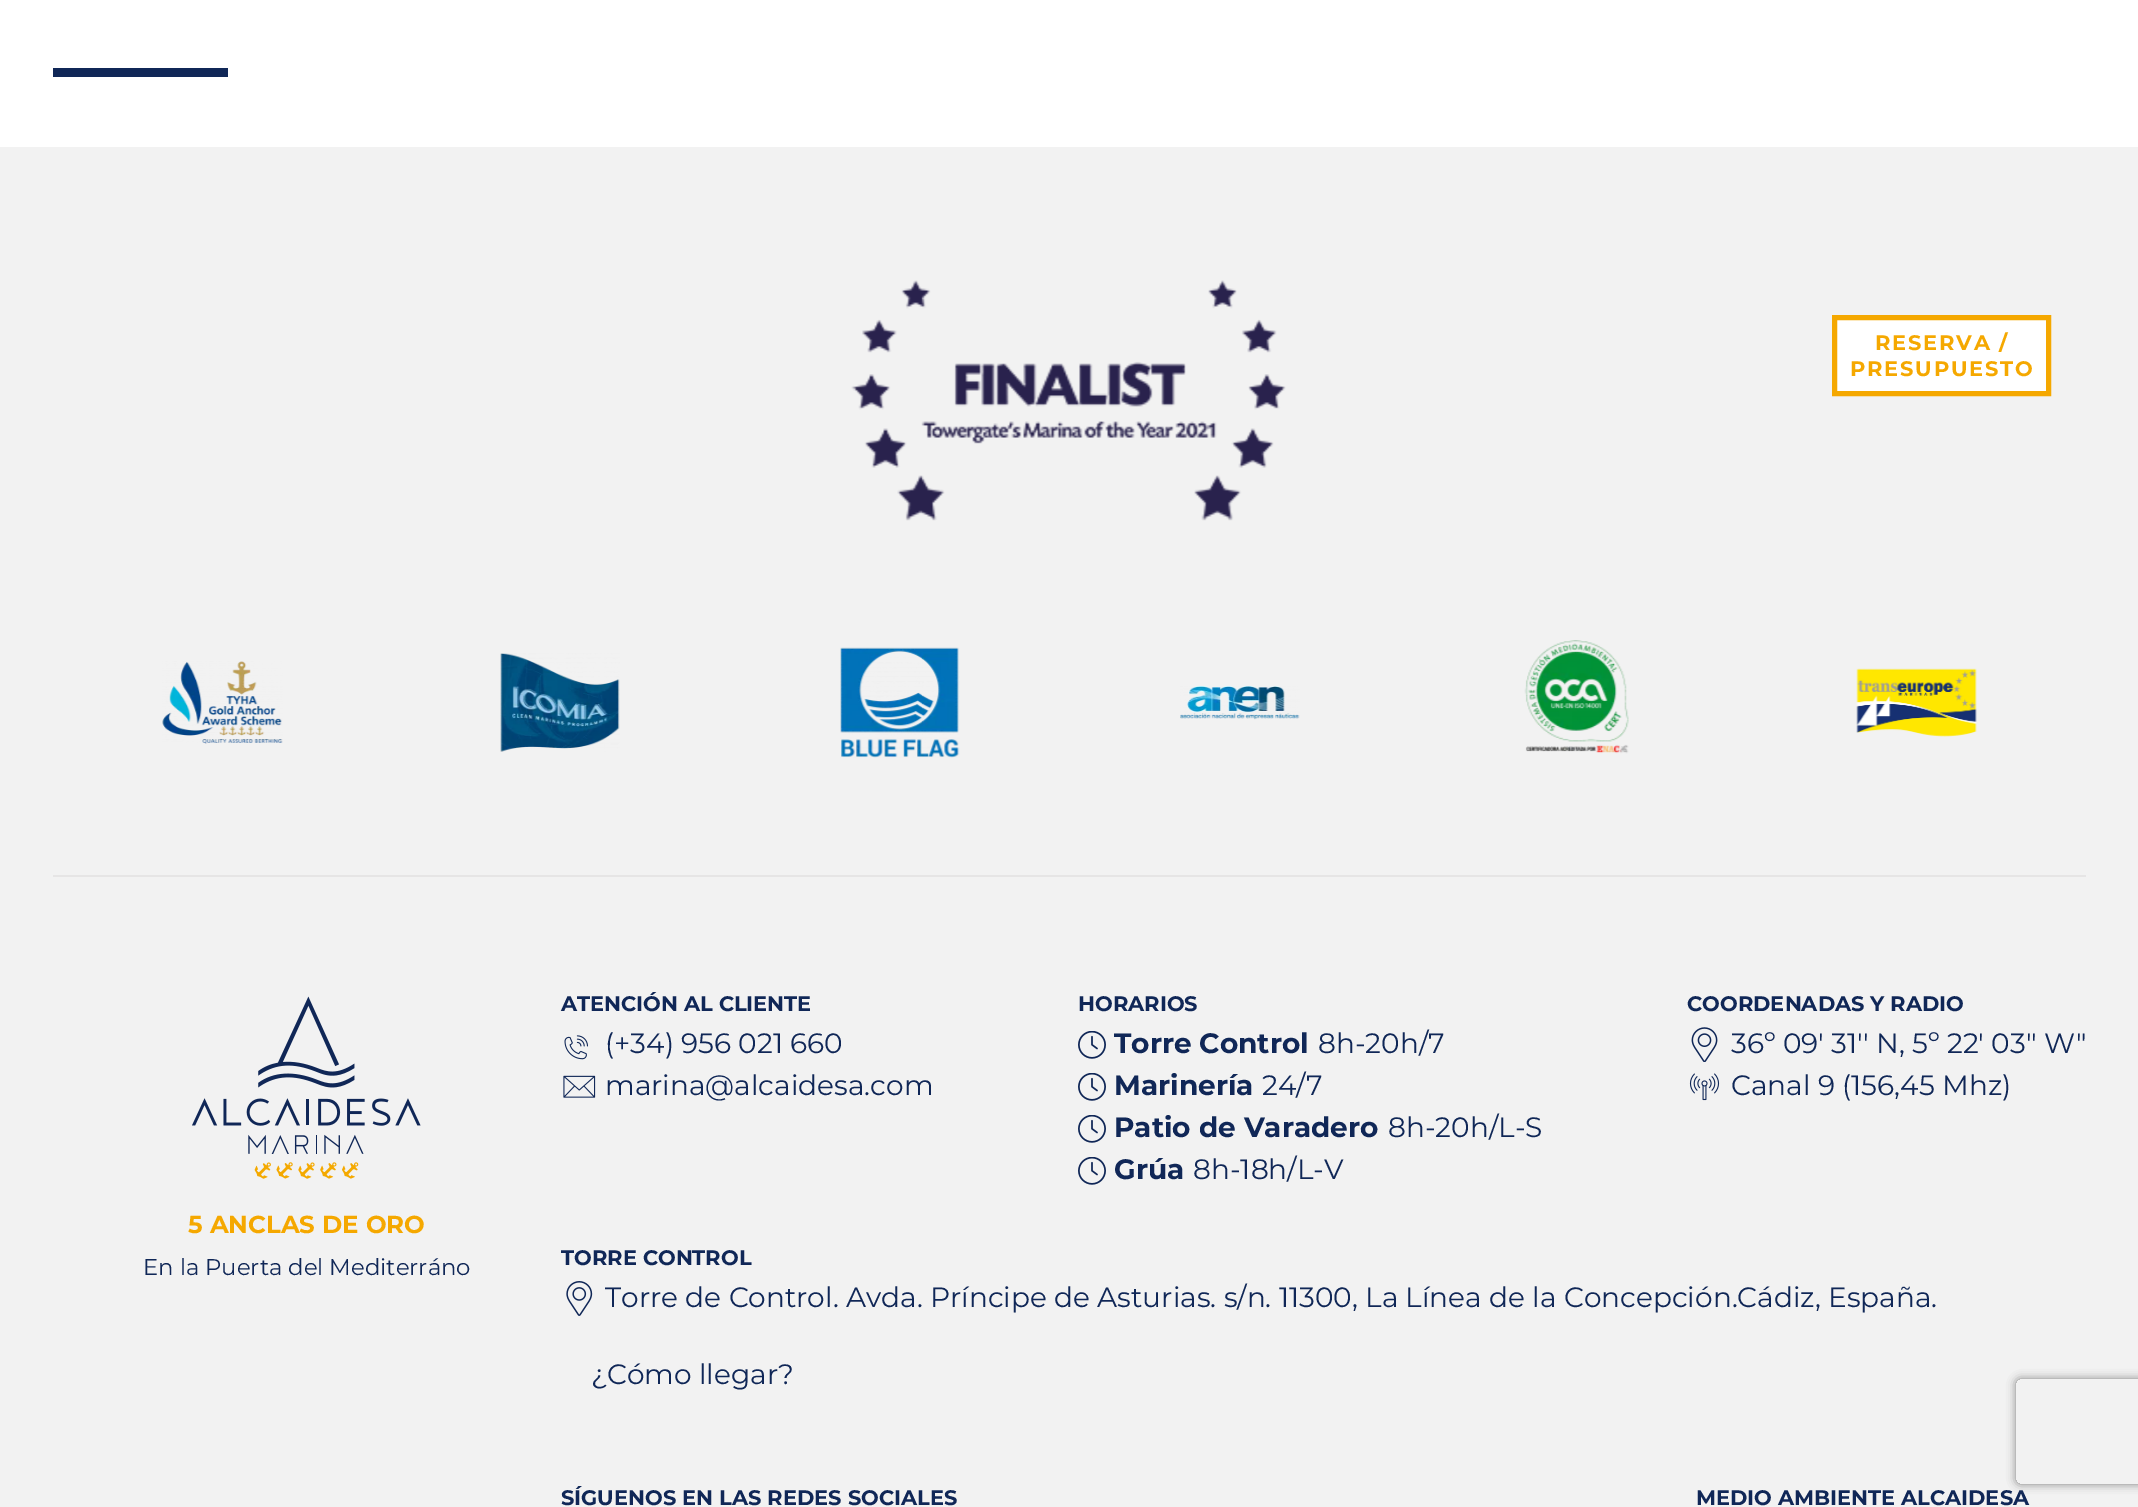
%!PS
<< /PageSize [2138 1507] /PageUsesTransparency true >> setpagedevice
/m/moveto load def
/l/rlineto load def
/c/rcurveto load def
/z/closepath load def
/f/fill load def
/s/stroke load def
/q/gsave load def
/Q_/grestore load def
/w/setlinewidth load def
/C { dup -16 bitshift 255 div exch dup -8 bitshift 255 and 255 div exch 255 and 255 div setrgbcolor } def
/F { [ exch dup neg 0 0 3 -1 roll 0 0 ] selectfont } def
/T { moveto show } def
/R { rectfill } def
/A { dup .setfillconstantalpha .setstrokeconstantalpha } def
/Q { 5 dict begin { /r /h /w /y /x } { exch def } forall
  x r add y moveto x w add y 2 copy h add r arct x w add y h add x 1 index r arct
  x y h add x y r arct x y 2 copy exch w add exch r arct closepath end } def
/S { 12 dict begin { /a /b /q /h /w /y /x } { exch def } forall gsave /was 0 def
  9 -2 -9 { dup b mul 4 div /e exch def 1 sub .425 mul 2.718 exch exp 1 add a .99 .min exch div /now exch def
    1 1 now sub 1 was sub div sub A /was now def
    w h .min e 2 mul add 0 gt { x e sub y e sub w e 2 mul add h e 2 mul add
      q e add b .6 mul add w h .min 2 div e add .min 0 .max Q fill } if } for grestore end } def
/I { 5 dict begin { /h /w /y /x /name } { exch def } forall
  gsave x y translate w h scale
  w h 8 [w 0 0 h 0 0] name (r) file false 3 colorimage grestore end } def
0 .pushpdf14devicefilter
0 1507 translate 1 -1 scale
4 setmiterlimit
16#FFFFFF C
0 0 2138 1507 R
16#102757 C
53 68 175 9 R
16#F2F2F2 C
0 147 2138 1360 R
16#FFFFFF C
1834.5 317.5 m 214 0 l 0 76 l -214 0 l z q f Q_
16#F5A800 C
5 w
s
/Montserrat-Bold 21 F
1875 350 m 1.75 0 (RESERVA /) ashow
1850 376 m 1.75 0 (PRESUPUESTO) ashow
(1.rgb) 851 280 435 241 I
16#E6E5E5 C
53 875 2033 2 R
(2.rgb) 162 661 121 83 I
(3.rgb) 500 653 120 99 I
(4.rgb) 840 647 120 111 I
(5.rgb) 1180 686 120 34 I
(6.rgb) 1524 640 105 114 I
(7.rgb) 1856 668 121 69 I
(8.rgb) 192 996 229 183 I
/Montserrat-Bold 24.5 F
16#F5A800 C
(5 ANCLAS DE ORO) 188 1233 T
/Montserrat-Regular 22.75 F
16#102757 C
(En la Puerta del Mediterráno) 143 1275 T
/Montserrat-Bold 21 F
(ATENCIÓN AL CLIENTE) 561 1011 T
(9.rgb) 564 1035 24 25 I
/Montserrat-Regular 28 F
(\(+34\) 956 021 660) 605 1053 T
(10.rgb) 563 1075 33 23 I
(marina@alcaidesa.com) 605 1095 T
/Montserrat-Bold 21 F
(HORARIOS) 1078 1011 T
(11.rgb) 1078 1031 28 28 I
/Montserrat-Bold 28 F
(Torre Control) 1114 1053 T
/Montserrat-Regular 28 F
(8h-20h/7) 1318 1053 T
(11.rgb) 1078 1073 28 28 I
/Montserrat-Bold 28 F
(Marinería) 1114 1095 T
/Montserrat-Regular 28 F
(24/7) 1262 1095 T
(11.rgb) 1078 1115 28 28 I
/Montserrat-Bold 28 F
(Patio de Varadero) 1114 1137 T
/Montserrat-Regular 28 F
(8h-20h/L-S) 1388 1137 T
(11.rgb) 1078 1157 28 28 I
/Montserrat-Bold 28 F
(Grúa) 1114 1179 T
/Montserrat-Regular 28 F
(8h-18h/L-V) 1193 1179 T
/Montserrat-Bold 21 F
(COORDENADAS Y RADIO) 1687 1011 T
(12.rgb) 1691 1027 27 35 I
/Montserrat-Regular 28 F
(36º 09' 31'' N, 5º 22' 03'' W") 1731 1053 T
(13.rgb) 1689 1073 31 28 I
(Canal 9 \(156,45 Mhz\)) 1731 1095 T
/Montserrat-Bold 21 F
(TORRE CONTROL) 561 1265 T
(14.rgb) 566 1281 27 35 I
/Montserrat-Regular 28 F
(Torre de Control. Avda. Príncipe de Asturias. s/n. 11300, La Línea de la Concepción.Cádiz, España.) 605 1307 T
(¿Cómo llegar?) 591 1384 T
/Montserrat-Bold 21 F
(SÍGUENOS EN LAS REDES SOCIALES) 561 1505 T
(MEDIO AMBIENTE ALCAIDESA) 1696 1505 T
q
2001 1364 m 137 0 l 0 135 l -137 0 l z 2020 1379 m 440 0 l 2 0 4 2 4 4 c 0 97 l 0 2 -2 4 -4 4 c -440 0 l -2 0 -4 -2 -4 -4 c 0 -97 l 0 -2 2 -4 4 -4 c z eoclip newpath
16#808080 C
2016 1379 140 105 4 4.5 1 S
Q_
.poppdf14devicefilter showpage
